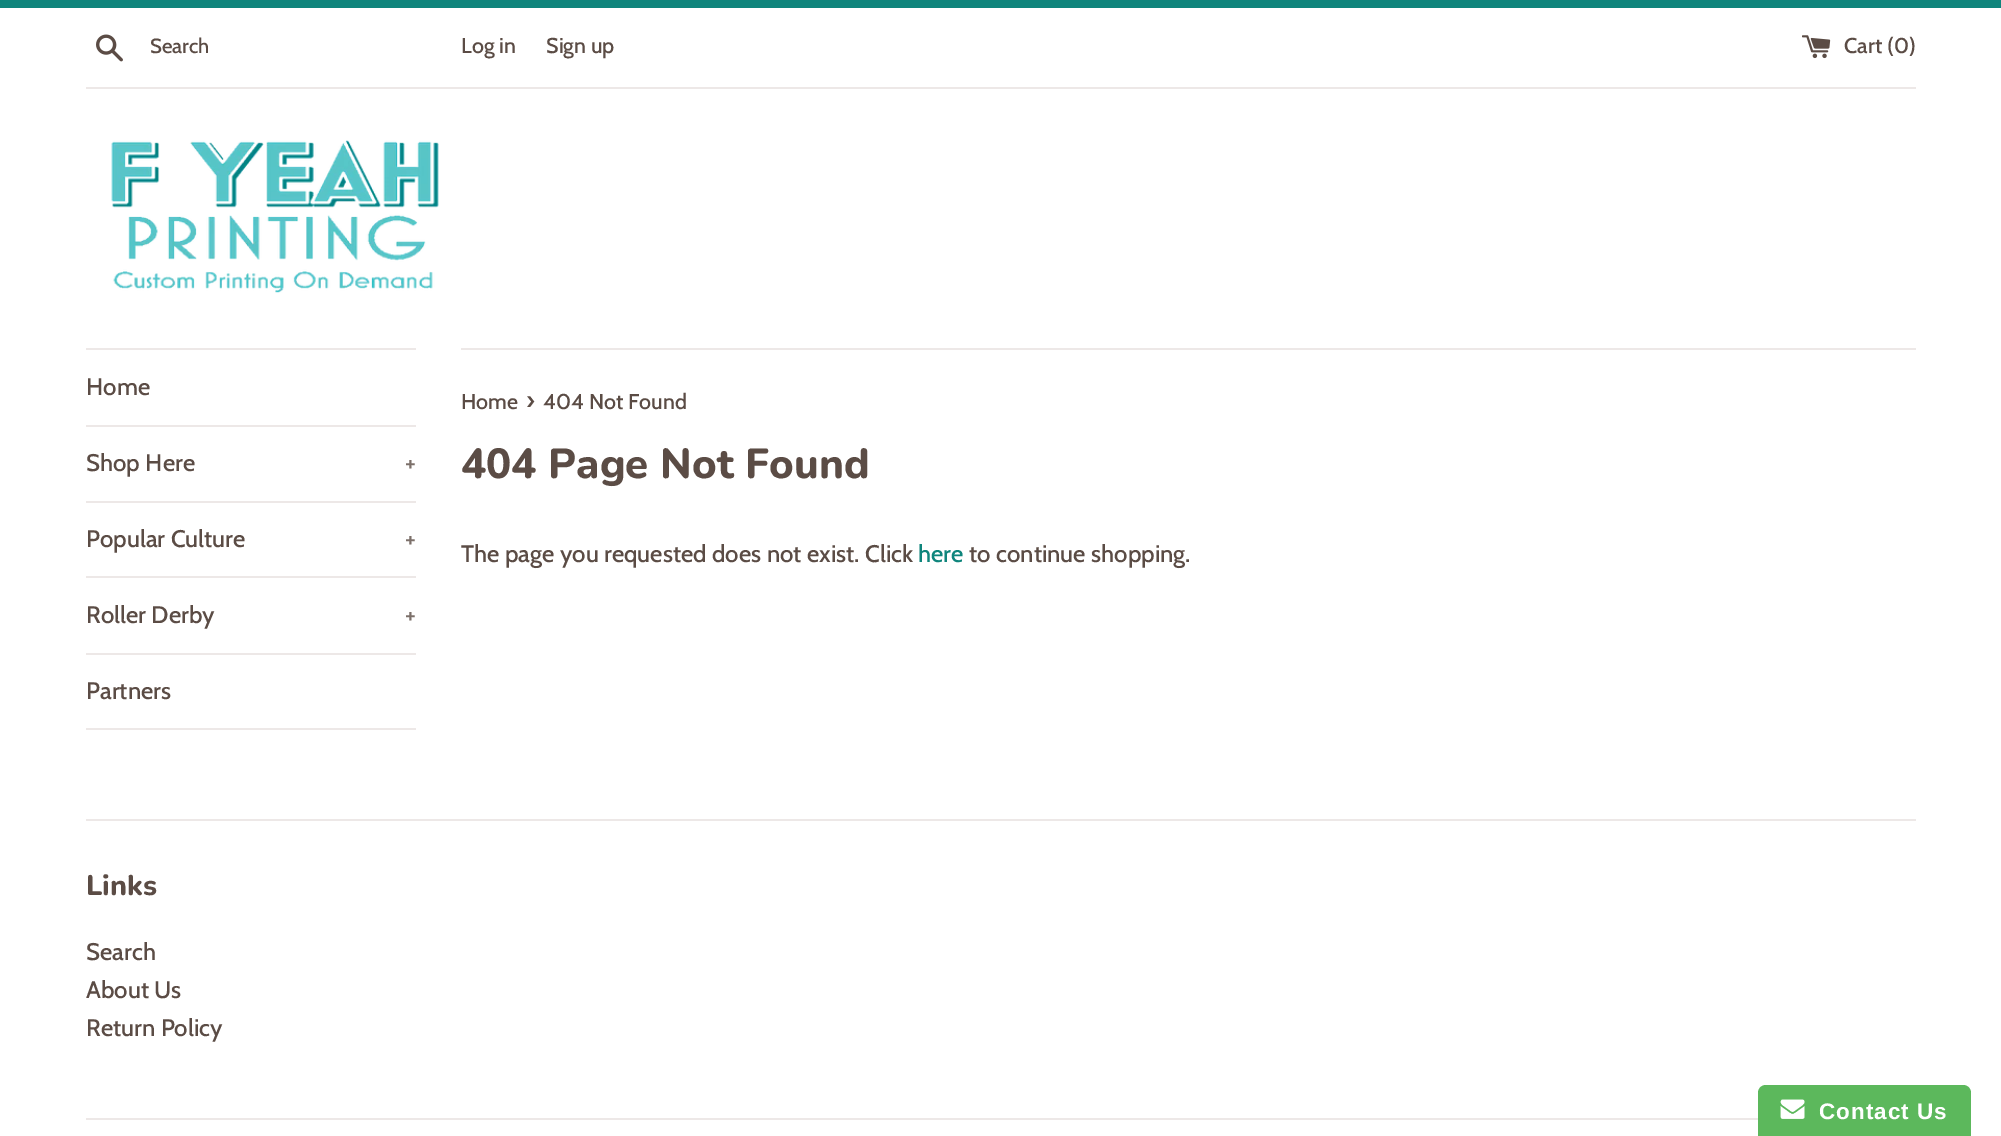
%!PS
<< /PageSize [2001 1136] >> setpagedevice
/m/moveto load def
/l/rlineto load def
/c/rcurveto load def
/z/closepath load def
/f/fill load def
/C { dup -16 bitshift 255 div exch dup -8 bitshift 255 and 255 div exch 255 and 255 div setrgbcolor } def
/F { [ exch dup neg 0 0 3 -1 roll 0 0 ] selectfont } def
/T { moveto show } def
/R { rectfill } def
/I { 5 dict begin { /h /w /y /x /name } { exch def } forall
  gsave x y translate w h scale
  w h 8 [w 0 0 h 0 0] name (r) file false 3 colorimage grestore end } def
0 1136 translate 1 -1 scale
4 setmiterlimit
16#FFFFFF C
0 0 2001 1136 R
16#0F857C C
0 0 2001 8 R
(1.rgb) 96 34 27 28 I
/Cabin-Medium 20.5 F
16#5B4C45 C
(Search) 150 53 T
/Cabin-Medium 21.5 F
(Log in) 461 53 T
(Sign up) 546 53 T
(2.rgb) 1802 35 29 24 I
(Cart \(0\)) 1844 53 T
16#EDE8E7 C
86 87 1830 2 R
(3.rgb) 111 140 328 153 I
86 348 330 2 R
86 425 330 2 R
/Cabin-Medium 24 F
16#5B4C45 C
(Home) 86 395 T
16#EDE8E7 C
86 501 330 2 R
16#5B4C45 C
(Shop Here) 86 471 T
16#7C706A C
(+) 405 471 T
16#EDE8E7 C
86 576 330 2 R
16#5B4C45 C
(Popular Culture) 86 547 T
16#7C706A C
(+) 405 547 T
16#EDE8E7 C
86 653 330 2 R
16#5B4C45 C
(Roller Derby) 86 623 T
16#7C706A C
(+) 405 623 T
16#EDE8E7 C
86 728 330 2 R
16#5B4C45 C
(Partners) 86 699 T
16#EDE8E7 C
461 348 1455 2 R
/Cabin-Medium 21.5 F
16#5B4C45 C
(Home) 461 409 T
/Cabin-Medium 26 F
(›) 526 409 T
/Cabin-Medium 21.5 F
(404 Not Found) 543 409 T
/Nunito-ExtraBold 42 F
(404 Page Not Found) 461 478 T
/Cabin-Medium 24 F
(The page you requested does not exist. Click) 461 562 T
16#0F857C C
(here) 918 562 T
16#5B4C45 C
(to continue shopping.) 969 562 T
16#EDE8E7 C
86 819 1830 2 R
/Nunito-ExtraBold 28.5 F
16#5B4C45 C
(Links) 86 895 T
/Cabin-Medium 24 F
(Search) 86 960 T
(About Us) 86 998 T
(Return Policy) 86 1036 T
16#EDE8E7 C
86 1118 1672 2 R
16#5CB85C C
1766 1085 m 197 0 l 4.5 0 8 3.5 8 8 c 0 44 l -213 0 l 0 -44 l 0 -4.5 3.5 -8 8 -8 c z f
(4.rgb) 1780 1099 25 20 I
/LiberationSans-Bold 22.5 F
16#FFFFFF C
1819 1119 m 1 0 (Contact Us) ashow
showpage
